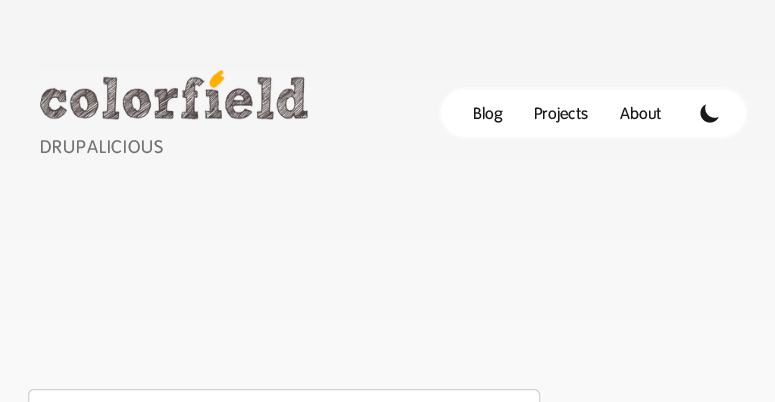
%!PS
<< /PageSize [775 402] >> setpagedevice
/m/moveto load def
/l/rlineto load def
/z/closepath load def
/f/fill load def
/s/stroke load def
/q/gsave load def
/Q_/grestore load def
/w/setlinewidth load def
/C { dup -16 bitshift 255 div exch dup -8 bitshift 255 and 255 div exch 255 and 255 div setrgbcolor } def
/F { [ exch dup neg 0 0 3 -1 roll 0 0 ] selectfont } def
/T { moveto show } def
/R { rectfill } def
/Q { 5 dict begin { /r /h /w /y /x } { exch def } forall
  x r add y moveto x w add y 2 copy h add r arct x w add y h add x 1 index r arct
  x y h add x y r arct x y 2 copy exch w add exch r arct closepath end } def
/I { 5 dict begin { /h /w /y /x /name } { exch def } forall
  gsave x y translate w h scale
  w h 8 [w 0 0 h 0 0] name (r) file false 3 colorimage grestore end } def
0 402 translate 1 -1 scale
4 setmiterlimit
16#FFFFFF C
0 0 775 402 R
q 0 0 m 775 0 l 0 402 l -775 0 l z clip newpath
<< /ShadingType 2 /ColorSpace /DeviceRGB /Coords [387 0 388 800] /Extend [true true] /Function << /FunctionType 2 /Domain [0 1] /C0 [.961 .961 .961] /C1 [1 1 1] /N 1 >> >> shfill Q_
440 88 307 50 25 Q q f Q_
16#FAFAFA C
2 w
s
/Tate-Regular 16 F
16#171717 C
(Blog) 473 119 T
(Projects) 534 119 T
(About) 620 119 T
(1.rgb) 700 104 19 19 I
(2.rgb) 40 69 268 51 I
/Tate-Regular 18 F
16#737373 C
40 153 m .9 0 (DRUPALICIOUS) ashow
16#FFFFFF C
28.5 389.5 511 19 5.5 Q q f Q_
16#D4D4D4 C
1 w
s
showpage
